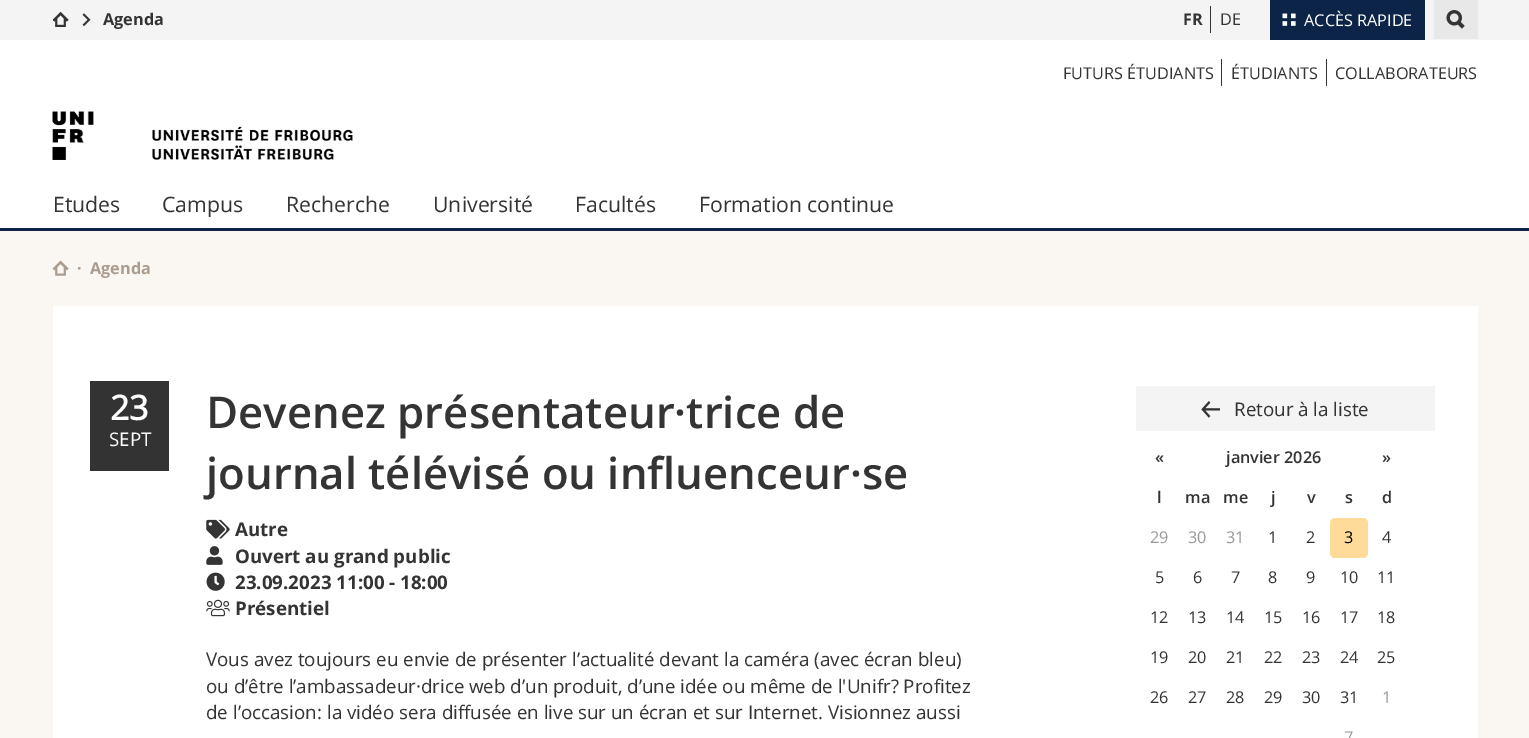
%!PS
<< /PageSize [1529 738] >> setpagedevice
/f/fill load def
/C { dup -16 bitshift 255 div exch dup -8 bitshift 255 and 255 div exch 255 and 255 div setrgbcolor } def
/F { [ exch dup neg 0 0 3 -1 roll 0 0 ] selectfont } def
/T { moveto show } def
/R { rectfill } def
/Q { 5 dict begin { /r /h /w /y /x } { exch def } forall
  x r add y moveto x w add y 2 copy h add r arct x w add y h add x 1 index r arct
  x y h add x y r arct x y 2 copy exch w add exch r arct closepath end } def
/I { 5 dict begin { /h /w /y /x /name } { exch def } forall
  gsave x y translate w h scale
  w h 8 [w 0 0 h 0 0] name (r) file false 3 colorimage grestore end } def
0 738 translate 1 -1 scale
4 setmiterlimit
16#FAF7F2 C
0 0 1529 738 R
16#F4F4F4 C
0 0 1529 40 R
(1.rgb) 53 11 16 16 I
(2.rgb) 82 13 9 14 I
/OpenSans-Bold 16.25 F
16#343434 C
(Agenda) 103 25 T
(FR) 1183 25 T
1210 6 1 27 R
/OpenSans-Regular 16.25 F
(DE) 1220 25 T
16#0C2447 C
1270 0 155 40 R
(3.rgb) 1282 13 14 13 I
16#FFFFFF C
(ACCÈS RAPIDE) 1304 26 T
16#E8E8E8 C
1434 0 44 39 R
(4.rgb) 1446 10 19 19 I
16#FFFFFF C
0 40 1529 188 R
16#343434 C
(FUTURS ÉTUDIANTS) 1063 79 T
1221 59 1 27 R
(ÉTUDIANTS) 1231 79 T
1326 59 1 27 R
(COLLABORATEURS) 1335 79 T
(5.rgb) 52 111 301 49 I
/OpenSans-Regular 21.25 F
(Etudes) 53 212 T
(Campus) 162 212 T
(Recherche) 286 212 T
(Université) 433 212 T
(Facultés) 575 212 T
(Formation continue) 699 212 T
16#0C2447 C
0 228 1529 3 R
(6.rgb) 52 260 17 16 I
/OpenSans-Bold 16.25 F
16#AA9D8F C
(·) 77 274 T
(Agenda) 90 274 T
16#FFFFFF C
53 306 1425 432 R
16#333333 C
90 381 79 90 R
/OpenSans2-Bold 34 F
16#FFFFFF C
(23) 110 420 T
/OpenSans-Regular 18.75 F
(SEPT) 109 446 T
/OpenSans-SemiBold 43.75 F
16#343434 C
(Devenez présentateur·trice de) 206 428 T
(journal télévisé ou influenceur·se) 206 489 T
(7.rgb) 206 519 24 20 I
/OpenSans-Bold 18.75 F
(Autre) 235 536 T
(8.rgb) 206 546 17 19 I
(Ouvert au grand public) 235 563 T
(9.rgb) 206 572 19 19 I
(23.09.2023 11:00 - 18:00) 235 589 T
(10.rgb) 206 599 24 18 I
(Présentiel) 235 615 T
/OpenSans-Regular 18.75 F
(Vous avez toujours eu envie de présenter l’actualité devant la caméra \(avec écran bleu\)) 206 666 T
(ou d’être l’ambassadeur·drice web d’un produit, d’une idée ou même de l'Unifr? Profitez) 206 693 T
(de l’occasion: la vidéo sera diffusée en live sur un écran et sur Internet. Visionnez aussi) 206 719 T
16#F4F4F4 C
1136 386 299 45 R
(11.rgb) 1201 401 19 17 I
16#343434 C
(Retour à la liste) 1234 416 T
/OpenSans-SemiBold 16.25 F
(«) 1155 463 T
(janvier 2026) 1226 463 T
(») 1382 463 T
(l) 1157 503 T
(ma) 1185 503 T
(me) 1223 503 T
(j) 1271 503 T
(v) 1307 503 T
(s) 1345 503 T
(d) 1382 503 T
/OpenSans-Regular 16.25 F
16#999999 C
(29) 1150 543 T
(30) 1188 543 T
(31) 1226 543 T
16#343434 C
(1) 1268 543 T
(2) 1306 543 T
16#FFDB99 C
1330 518 38 40 5 Q f
16#000000 C
(3) 1344 543 T
16#343434 C
(4) 1382 543 T
(5) 1155 583 T
(6) 1193 583 T
(7) 1231 583 T
(8) 1268 583 T
(9) 1306 583 T
(10) 1340 583 T
(11) 1377 583 T
(12) 1150 623 T
(13) 1188 623 T
(14) 1226 623 T
(15) 1264 623 T
(16) 1302 623 T
(17) 1340 623 T
(18) 1377 623 T
(19) 1150 663 T
(20) 1188 663 T
(21) 1226 663 T
(22) 1264 663 T
(23) 1302 663 T
(24) 1340 663 T
(25) 1377 663 T
(26) 1150 703 T
(27) 1188 703 T
(28) 1226 703 T
(29) 1264 703 T
(30) 1302 703 T
(31) 1340 703 T
16#999999 C
(1) 1382 703 T
(7) 1344 743 T
showpage
